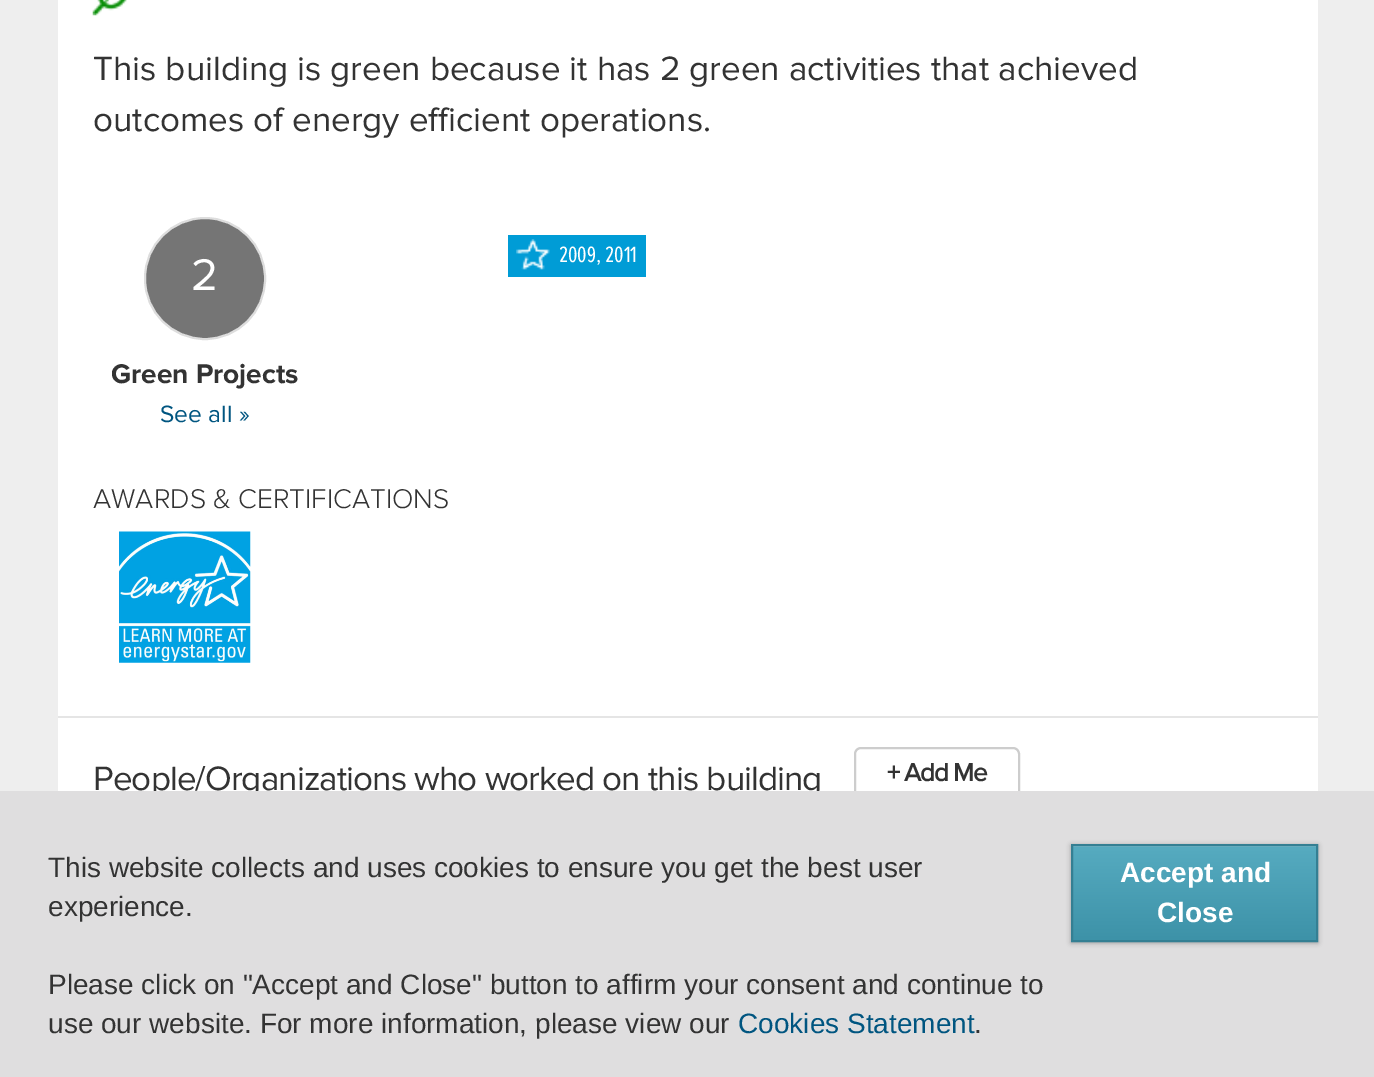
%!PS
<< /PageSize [1374 1077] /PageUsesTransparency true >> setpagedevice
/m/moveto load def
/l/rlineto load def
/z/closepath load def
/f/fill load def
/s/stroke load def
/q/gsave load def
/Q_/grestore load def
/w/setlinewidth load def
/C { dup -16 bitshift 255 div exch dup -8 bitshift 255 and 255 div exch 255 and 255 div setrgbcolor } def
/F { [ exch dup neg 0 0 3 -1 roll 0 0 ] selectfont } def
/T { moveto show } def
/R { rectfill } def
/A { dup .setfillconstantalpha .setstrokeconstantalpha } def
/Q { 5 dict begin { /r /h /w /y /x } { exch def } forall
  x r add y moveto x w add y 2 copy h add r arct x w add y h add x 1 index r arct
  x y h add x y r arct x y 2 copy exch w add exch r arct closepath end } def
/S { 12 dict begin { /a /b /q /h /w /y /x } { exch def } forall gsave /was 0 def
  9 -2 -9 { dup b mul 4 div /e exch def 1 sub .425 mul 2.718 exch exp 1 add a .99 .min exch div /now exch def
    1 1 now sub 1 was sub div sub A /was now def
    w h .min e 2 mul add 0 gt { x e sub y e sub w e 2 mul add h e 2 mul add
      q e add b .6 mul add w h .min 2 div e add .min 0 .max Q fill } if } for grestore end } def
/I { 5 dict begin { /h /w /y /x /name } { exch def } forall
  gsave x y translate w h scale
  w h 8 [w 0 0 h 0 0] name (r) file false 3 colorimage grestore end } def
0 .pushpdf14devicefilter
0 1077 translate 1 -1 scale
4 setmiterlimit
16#EEEEEE C
0 0 1374 1077 R
16#FFFFFF C
58 0 1260 791 R
16#E5E5E5 C
58 716 1260 2 R
(1.rgb) 92 0 35 16 I
/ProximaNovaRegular-Regular 35 F
16#333333 C
(This building is green because it has 2 green activities that achieved) 93 80 T
(outcomes of energy efficient operations.) 93 131 T
16#009CD6 C
508 235 138 42 R
(2.rgb) 516 239 34 31 I
/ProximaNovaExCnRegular-Regular 23 F
16#FFFFFF C
(2009, 2011) 559 262 T
16#757575 C
145 218 120 121 60 Q q f Q_
16#DDDDDD C
2 w
s
/ProximaNovaRegular-Regular 46 F
16#FFFFFF C
(2) 191 290 T
/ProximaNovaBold-Bold 28 F
16#333333 C
(Green Projects) 111 383 T
/ProximaNovaRegular-Regular 24.5 F
16#005580 C
(See all ») 160 422 T
/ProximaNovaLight-Light 28 F
16#333333 C
(AWARDS & CERTIFICATIONS) 93 508 T
(3.rgb) 119 531 132 132 I
/ProximaNovaRegular-Regular 35 F
93 790 m -.9 0 (People/Organizations who worked on this building) ashow
16#CDCDCD C
855 748 164 49 6 Q s
/ProximaNovaRegular-Bold 26 F
16#333333 C
887 781 m -1.25 0 (+ Add Me) ashow
16#DFDEDF C
0 791 1374 286 R
/LiberationSans-Regular 28 F
16#333333 C
(This website collects and uses cookies to ensure you get the best user) 48 877 T
(experience.) 48 916 T
(Please click on "Accept and Close" button to affirm your consent and continue to) 48 994 T
(use our website. For more information, please view our) 48 1033 T
16#005580 C
(Cookies Statement) 738 1033 T
16#333333 C
(.) 974 1033 T
16#000000 C
1071 845 247 98 0 2.5 .28 S
q 1073 847 m 243 0 l 0 93 l -243 0 l z clip newpath
<< /ShadingType 2 /ColorSpace /DeviceRGB /Coords [1073 845 1073 940] /Extend [true true] /Function << /FunctionType 2 /Domain [0 1] /C0 [.341 .671 .753] /C1 [.239 .573 .659] /N 1 >> >> shfill Q_
16#78BBCC C
1073 846 243 1 R
16#347F93 C
1072 845 245 96 rectstroke
/LiberationSans-Bold 28 F
16#FFFFFF C
(Accept and) 1120 882 T
(Close) 1157 922 T
.poppdf14devicefilter showpage
